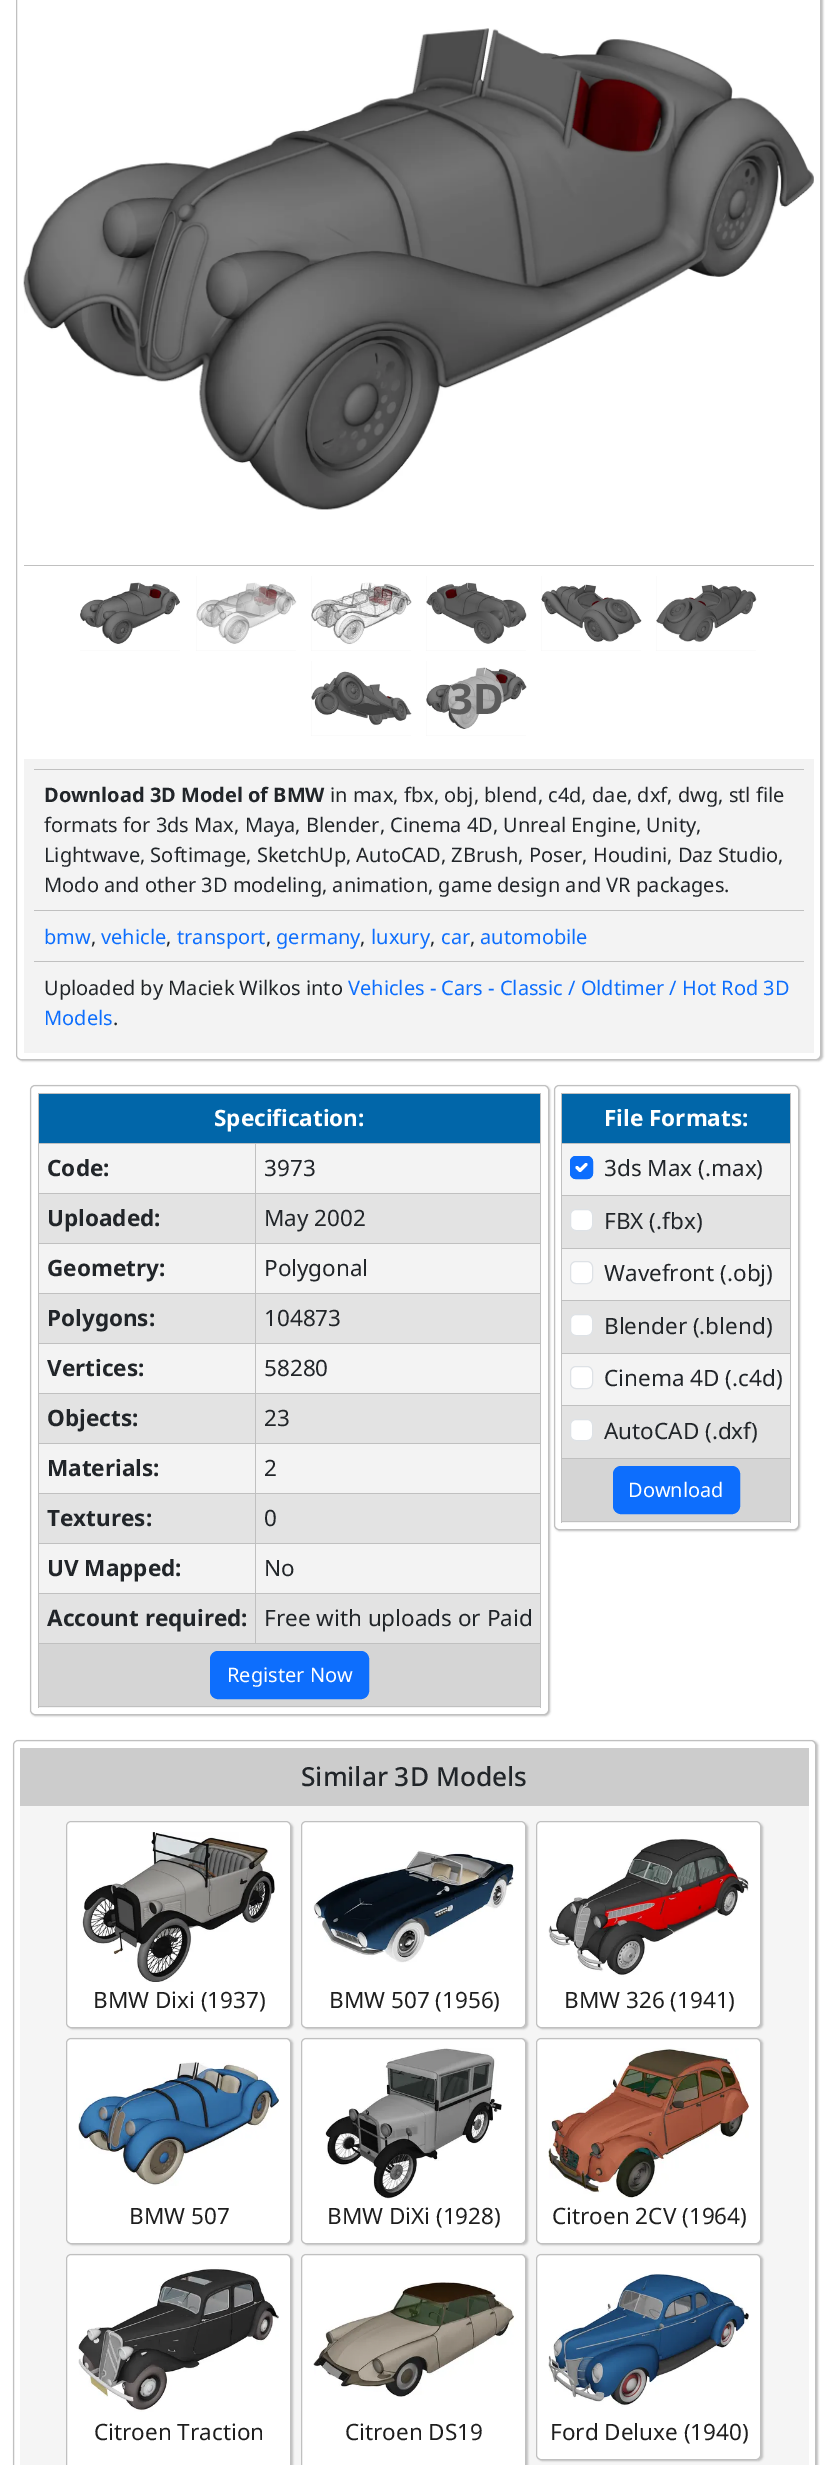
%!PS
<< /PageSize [828 2465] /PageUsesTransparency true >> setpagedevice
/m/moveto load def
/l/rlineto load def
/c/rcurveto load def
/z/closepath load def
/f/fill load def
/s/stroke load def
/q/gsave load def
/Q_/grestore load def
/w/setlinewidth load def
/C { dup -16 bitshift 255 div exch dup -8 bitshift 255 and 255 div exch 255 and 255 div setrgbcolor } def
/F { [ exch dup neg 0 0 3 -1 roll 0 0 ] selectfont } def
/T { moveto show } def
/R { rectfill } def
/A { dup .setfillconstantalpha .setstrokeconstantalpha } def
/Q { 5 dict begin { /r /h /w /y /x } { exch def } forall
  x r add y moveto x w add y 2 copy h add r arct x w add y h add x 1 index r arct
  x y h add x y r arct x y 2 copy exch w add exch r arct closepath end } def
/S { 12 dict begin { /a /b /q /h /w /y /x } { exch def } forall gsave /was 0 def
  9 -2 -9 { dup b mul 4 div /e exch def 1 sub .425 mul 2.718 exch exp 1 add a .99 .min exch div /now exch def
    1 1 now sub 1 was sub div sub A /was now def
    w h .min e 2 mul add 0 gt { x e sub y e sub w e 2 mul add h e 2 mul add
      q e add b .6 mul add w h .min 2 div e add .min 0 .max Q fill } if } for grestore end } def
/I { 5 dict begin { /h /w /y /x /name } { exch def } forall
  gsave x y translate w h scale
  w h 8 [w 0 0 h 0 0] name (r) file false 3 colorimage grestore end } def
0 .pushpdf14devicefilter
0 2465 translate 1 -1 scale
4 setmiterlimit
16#FFFFFF C
0 0 828 2465 R
q
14 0 m 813 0 l 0 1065 l -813 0 l z 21 -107 m 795 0 l 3 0 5 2 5 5 c 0 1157 l 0 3 -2 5 -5 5 c -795 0 l -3 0 -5 -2 -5 -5 c 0 -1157 l 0 -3 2 -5 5 -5 c z eoclip newpath
16#C0C0C0 C
18 -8 805 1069 5 1 1 S
Q_
16#C0C0C0 C
16.5 -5.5 804 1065 4.5 Q s
(1.rgb) 23 28 791 482 I
24 565 790 1 R
(2.rgb) 80 576 100 75 I
16#EFEFEF C
196 576 100 75 R
(3.rgb) 196 576 101 75 I
311 576 100 75 R
(4.rgb) 311 576 101 75 I
426 576 100 75 R
(5.rgb) 426 576 101 75 I
541 576 100 75 R
(6.rgb) 541 576 101 75 I
656 576 100 75 R
(7.rgb) 656 576 101 75 I
311 661 100 75 R
(8.rgb) 311 661 101 75 I
426 661 100 75 R
(9.rgb) 426 661 101 75 I
0.5 A
16#FFFFFF C
476 667 m 15 0 27.5 14.5 27.5 32 c 0 17.5 -12.5 32 -27.5 32 c -15 0 -27.5 -14.5 -27.5 -32 c 0 -17.5 12.5 -32 27.5 -32 c z f
/NotoSans-Bold 42 F
1 A
16#5B5B5B C
(3D) 449 714 T
16#F3F3F3 C
24 759 790 294 R
16#C0C0C0 C
34 769 770 1 R
/NotoSans-Bold 20 F
16#212529 C
(Download 3D Model of BMW) 44 802 T
/NotoSans-Regular 20 F
(in max, fbx, obj, blend, c4d, dae, dxf, dwg, stl file) 330 802 T
(formats for 3ds Max, Maya, Blender, Cinema 4D, Unreal Engine, Unity,) 44 832 T
(Lightwave, Softimage, SketchUp, AutoCAD, ZBrush, Poser, Houdini, Daz Studio,) 44 862 T
(Modo and other 3D modeling, animation, game design and VR packages.) 44 892 T
16#C0C0C0 C
34 910 770 1 R
16#0D6EFD C
(bmw) 44 944 T
16#212529 C
(,) 91 944 T
16#0D6EFD C
(vehicle) 101 944 T
16#212529 C
(,) 166 944 T
16#0D6EFD C
(transport) 177 944 T
16#212529 C
(,) 266 944 T
16#0D6EFD C
(germany) 276 944 T
16#212529 C
(,) 360 944 T
16#0D6EFD C
(luxury) 371 944 T
16#212529 C
(,) 430 944 T
16#0D6EFD C
(car) 441 944 T
16#212529 C
(,) 470 944 T
16#0D6EFD C
(automobile) 480 944 T
16#C0C0C0 C
34 961 770 1 R
16#212529 C
(Uploaded by Maciek Wilkos into) 44 995 T
16#0D6EFD C
(Vehicles - Cars - Classic / Oldtimer / Hot Rod 3D) 348 995 T
(Models) 44 1025 T
16#212529 C
(.) 113 1025 T
q
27 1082 m 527 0 l 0 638 l -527 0 l z 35 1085 m 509 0 l 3 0 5 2 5 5 c 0 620 l 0 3 -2 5 -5 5 c -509 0 l -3 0 -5 -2 -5 -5 c 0 -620 l 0 -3 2 -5 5 -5 c z eoclip newpath
16#C0C0C0 C
31 1086 519 630 5 1 1 S
Q_
16#C0C0C0 C
30.5 1085.5 518 629 4.5 Q s
16#F3F3F3 C
39 1144 501 564 R
16#0166A9 C
39 1094 501 49 R
16#C0C0C0 C
38 1093 503 1 R
255 1143 286 1 R
255 1193 286 1 R
255 1243 286 1 R
255 1293 286 1 R
255 1343 286 1 R
255 1393 286 1 R
255 1443 286 1 R
255 1493 286 1 R
255 1543 286 1 R
255 1593 286 1 R
38 1643 503 1 R
540 1643 1 65 R
540 1593 1 51 R
540 1543 1 51 R
540 1493 1 51 R
540 1443 1 51 R
540 1393 1 51 R
540 1343 1 51 R
540 1293 1 51 R
540 1243 1 51 R
540 1193 1 51 R
540 1143 1 51 R
540 1093 1 51 R
16#E3E3E3 C
39 1194 501 49 R
39 1294 501 49 R
39 1394 501 49 R
39 1494 501 49 R
39 1594 501 49 R
16#C0C0C0 C
255 1593 1 51 R
38 1593 218 1 R
255 1543 1 51 R
38 1543 218 1 R
255 1493 1 51 R
38 1493 218 1 R
255 1443 1 51 R
38 1443 218 1 R
255 1393 1 51 R
38 1393 218 1 R
255 1343 1 51 R
38 1343 218 1 R
255 1293 1 51 R
38 1293 218 1 R
255 1243 1 51 R
38 1243 218 1 R
255 1193 1 51 R
38 1193 218 1 R
255 1143 1 51 R
38 1143 218 1 R
38 1706 503 1 R
38 1643 1 65 R
38 1593 1 51 R
38 1543 1 51 R
38 1493 1 51 R
38 1443 1 51 R
38 1393 1 51 R
38 1343 1 51 R
38 1293 1 51 R
38 1243 1 51 R
38 1193 1 51 R
38 1143 1 51 R
38 1093 1 51 R
/NotoSans-Bold 22.5 F
16#FFFFFF C
(Specification:) 214 1126 T
16#212529 C
(Code:) 47 1176 T
/NotoSans-Regular 22.5 F
(3973) 264 1176 T
/NotoSans-Bold 22.5 F
(Uploaded:) 47 1226 T
/NotoSans-Regular 22.5 F
(May 2002) 264 1226 T
/NotoSans-Bold 22.5 F
(Geometry:) 47 1276 T
/NotoSans-Regular 22.5 F
(Polygonal) 264 1276 T
/NotoSans-Bold 22.5 F
(Polygons:) 47 1326 T
/NotoSans-Regular 22.5 F
(104873) 264 1326 T
/NotoSans-Bold 22.5 F
(Vertices:) 47 1376 T
/NotoSans-Regular 22.5 F
(58280) 264 1376 T
/NotoSans-Bold 22.5 F
(Objects:) 47 1426 T
/NotoSans-Regular 22.5 F
(23) 264 1426 T
/NotoSans-Bold 22.5 F
(Materials:) 47 1476 T
/NotoSans-Regular 22.5 F
(2) 264 1476 T
/NotoSans-Bold 22.5 F
(Textures:) 47 1526 T
/NotoSans-Regular 22.5 F
(0) 264 1526 T
/NotoSans-Bold 22.5 F
(UV Mapped:) 47 1576 T
/NotoSans-Regular 22.5 F
(No) 264 1576 T
/NotoSans-Bold 22.5 F
(Account required:) 47 1626 T
/NotoSans-Regular 22.5 F
(Free with uploads or Paid) 264 1626 T
16#D5D5D5 C
39 1644 501 62 R
16#0D6EFD C
210.5 1651.5 158 47 7.5 Q q f Q_
s
/NotoSans-Regular 20 F
16#FFFFFF C
(Register Now) 227 1682 T
q
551 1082 m 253 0 l 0 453 l -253 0 l z 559 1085 m 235 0 l 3 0 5 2 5 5 c 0 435 l 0 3 -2 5 -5 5 c -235 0 l -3 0 -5 -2 -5 -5 c 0 -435 l 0 -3 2 -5 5 -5 c z eoclip newpath
16#C0C0C0 C
555 1086 245 445 5 1 1 S
Q_
16#C0C0C0 C
554.5 1085.5 244 444 4.5 Q s
16#F3F3F3 C
562 1144 228 379 R
16#0166A9 C
562 1094 228 49 R
16#C0C0C0 C
561 1093 230 1 R
561 1143 230 1 R
561 1195 230 1 R
561 1248 230 1 R
561 1300 230 1 R
561 1353 230 1 R
561 1405 230 1 R
561 1458 230 1 R
790 1458 1 65 R
790 1405 1 54 R
790 1353 1 53 R
790 1300 1 54 R
790 1248 1 53 R
790 1195 1 54 R
790 1143 1 53 R
790 1093 1 51 R
561 1521 230 1 R
561 1458 1 65 R
561 1405 1 54 R
561 1353 1 53 R
561 1300 1 54 R
561 1248 1 53 R
561 1195 1 54 R
561 1143 1 53 R
561 1093 1 51 R
/NotoSans-Bold 22.5 F
16#FFFFFF C
(File Formats:) 604 1126 T
16#0D6EFD C
570 1156 23 23 6 Q f
16#FFFFFF C
3 w
1 setlinecap
1 setlinejoin
577 1167.5 m 3 3 l 6 -6 l s
16#0D6EFD C
1 w
0 setlinecap
0 setlinejoin
570.5 1156.5 22 22 5.5 Q s
/NotoSans-Regular 22.5 F
16#212529 C
(3ds Max \(.max\)) 604 1176 T
16#E3E3E3 C
562 1196 228 52 R
16#FFFFFF C
570.5 1209.5 22 21 5.5 Q q f Q_
16#DEE2E6 C
s
16#212529 C
(FBX \(.fbx\)) 604 1229 T
16#FFFFFF C
570.5 1261.5 22 22 5.5 Q q f Q_
16#DEE2E6 C
s
16#212529 C
(Wavefront \(.obj\)) 604 1281 T
16#E3E3E3 C
562 1301 228 52 R
16#FFFFFF C
570.5 1314.5 22 21 5.5 Q q f Q_
16#DEE2E6 C
s
16#212529 C
(Blender \(.blend\)) 604 1334 T
16#FFFFFF C
570.5 1366.5 22 22 5.5 Q q f Q_
16#DEE2E6 C
s
16#212529 C
(Cinema 4D \(.c4d\)) 604 1386 T
16#E3E3E3 C
562 1406 228 52 R
16#FFFFFF C
570.5 1419.5 22 21 5.5 Q q f Q_
16#DEE2E6 C
s
16#212529 C
(AutoCAD \(.dxf\)) 604 1439 T
16#D5D5D5 C
562 1459 228 62 R
16#0D6EFD C
613.5 1466.5 126 47 7.5 Q q f Q_
s
/NotoSans-Regular 20 F
16#FFFFFF C
(Download) 628 1497 T
q
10 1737 m 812 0 l 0 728 l -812 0 l z 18 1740 m 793 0 l 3 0 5 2 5 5 c 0 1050 l 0 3 -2 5 -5 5 c -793 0 l -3 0 -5 -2 -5 -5 c 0 -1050 l 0 -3 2 -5 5 -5 c z eoclip newpath
16#C0C0C0 C
14 1741 804 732 5 1 1 S
Q_
16#C0C0C0 C
13.5 1740.5 802 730 4.5 Q s
16#CCCCCC C
20 1748 789 58 R
/NotoSans-Medium 26.25 F
16#212529 C
(Similar 3D Models) 301 1786 T
16#F5F5F5 C
20 1806 789 659 R
16#C0C0C0 C
68 1823 225 206 5 1 1 S
16#FFFFFF C
66.5 1821.5 224 206 4.5 Q q f Q_
16#C0C0C0 C
s
(10.rgb) 81 1832 194 150 I
/NotoSans-Regular 22.5 F
16#1E1E1E C
(BMW Dixi \(1937\)) 93 2008 T
16#C0C0C0 C
303 1823 225 206 5 1 1 S
16#FFFFFF C
301.5 1821.5 224 206 4.5 Q q f Q_
16#C0C0C0 C
s
(11.rgb) 313 1850 201 113 I
16#1E1E1E C
(BMW 507 \(1956\)) 329 2008 T
16#C0C0C0 C
538 1823 225 206 5 1 1 S
16#FFFFFF C
536.5 1821.5 224 206 4.5 Q q f Q_
16#C0C0C0 C
s
(12.rgb) 548 1838 201 139 I
16#1E1E1E C
(BMW 326 \(1941\)) 564 2008 T
16#C0C0C0 C
68 2039 225 206 5 1 1 S
16#FFFFFF C
66.5 2038.5 224 205 4.5 Q q f Q_
16#C0C0C0 C
s
(13.rgb) 78 2061 201 125 I
16#1E1E1E C
(BMW 507) 129 2224 T
16#C0C0C0 C
303 2039 225 206 5 1 1 S
16#FFFFFF C
301.5 2038.5 224 205 4.5 Q q f Q_
16#C0C0C0 C
s
(14.rgb) 325 2048 177 151 I
16#1E1E1E C
(BMW DiXi \(1928\)) 327 2224 T
16#C0C0C0 C
538 2039 225 206 5 1 1 S
16#FFFFFF C
536.5 2038.5 224 205 4.5 Q q f Q_
16#C0C0C0 C
s
(15.rgb) 548 2048 201 150 I
16#1E1E1E C
(Citroen 2CV \(1964\)) 552 2224 T
16#C0C0C0 C
68 2255 225 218 5 1 1 S
16#FFFFFF C
66.5 2254.5 224 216 4.5 Q q f Q_
16#C0C0C0 C
s
(16.rgb) 78 2267 201 145 I
16#1E1E1E C
(Citroen Traction) 94 2440 T
16#C0C0C0 C
303 2255 225 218 5 1 1 S
16#FFFFFF C
301.5 2254.5 224 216 4.5 Q q f Q_
16#C0C0C0 C
s
(17.rgb) 313 2282 201 115 I
16#1E1E1E C
(Citroen DS19) 345 2440 T
16#C0C0C0 C
538 2255 225 206 5 1 1 S
16#FFFFFF C
536.5 2254.5 224 205 4.5 Q q f Q_
16#C0C0C0 C
s
(18.rgb) 548 2273 201 134 I
16#1E1E1E C
(Ford Deluxe \(1940\)) 550 2440 T
.poppdf14devicefilter showpage
